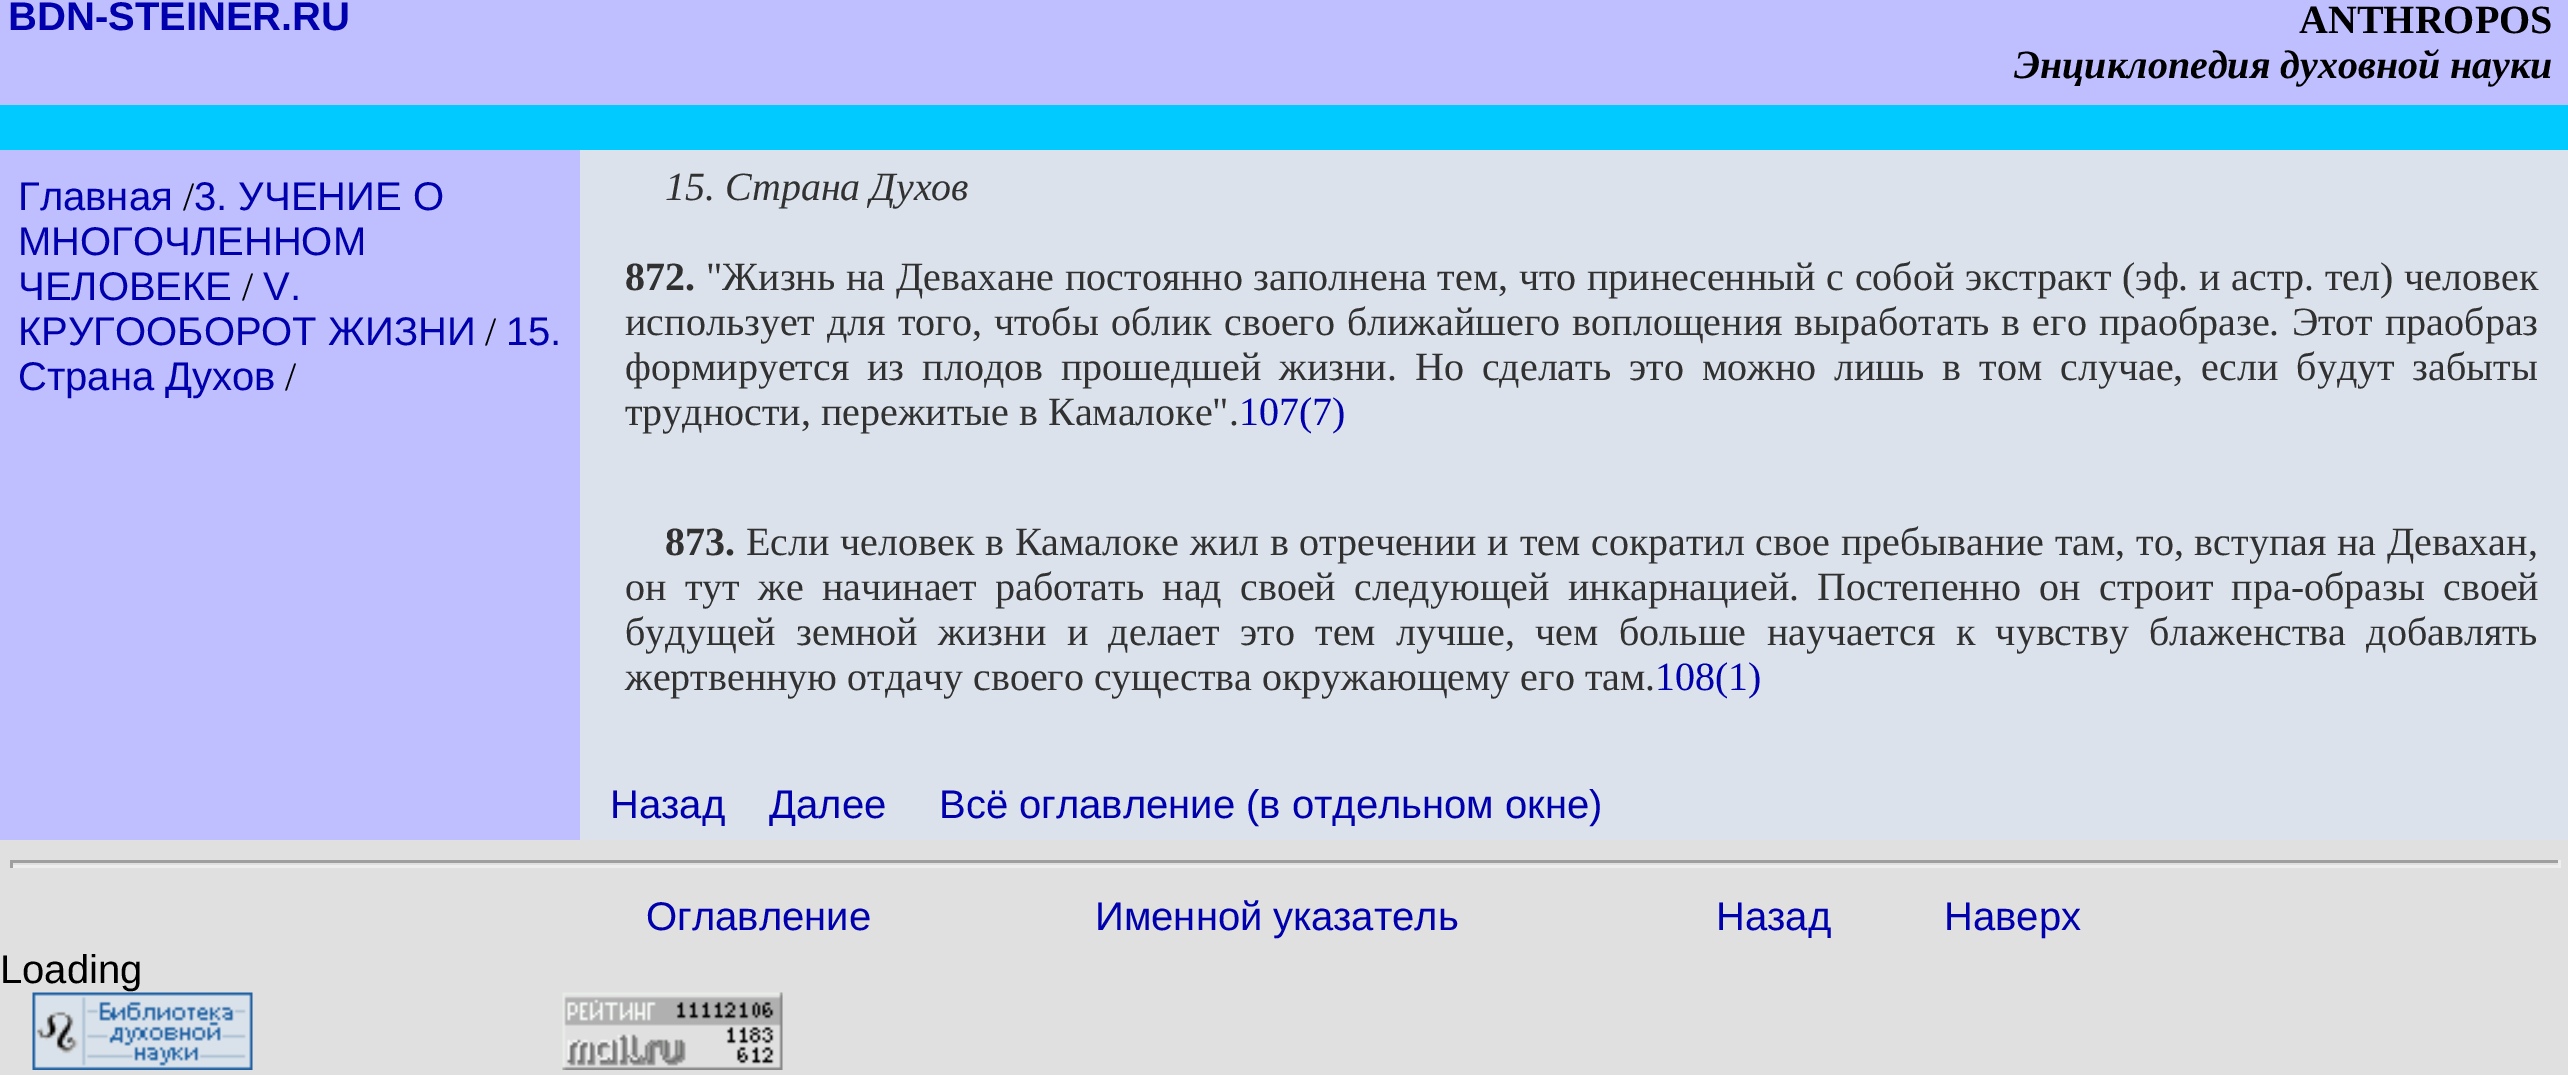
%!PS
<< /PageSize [2568 1075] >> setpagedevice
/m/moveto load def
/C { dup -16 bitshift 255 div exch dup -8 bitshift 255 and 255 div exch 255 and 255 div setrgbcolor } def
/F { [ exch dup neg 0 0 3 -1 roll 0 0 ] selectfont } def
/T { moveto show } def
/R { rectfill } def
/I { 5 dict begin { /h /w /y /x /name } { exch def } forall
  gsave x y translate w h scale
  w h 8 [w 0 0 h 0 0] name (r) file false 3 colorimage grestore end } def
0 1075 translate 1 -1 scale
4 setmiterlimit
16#E0E0E0 C
0 0 2568 1075 R
16#BFBFFF C
0 0 2568 105 R
/LiberationSans-Bold 40 F
16#0001AC C
(BDN-STEINER.RU) 8 30 T
/LiberationSerif-Bold 40 F
16#000000 C
(ANTHROPOS) 2299 33 T
/LiberationSerif-BoldItalic 40 F
(Энциклопедия духовной науки) 2014 78 T
16#00CAFF C
0 105 2568 45 R
16#BFBFFF C
0 150 580 690 R
/LiberationSans-Regular 40 F
16#0001AC C
(Главная) 18 210 T
/LiberationSerif-Regular 40 F
16#000000 C
(/) 183 210 T
/LiberationSans-Regular 40 F
16#0001AC C
(3. УЧЕНИЕ О) 194 210 T
(МНОГОЧЛЕННОМ) 18 255 T
(ЧЕЛОВЕКЕ) 18 300 T
/LiberationSerif-Regular 40 F
16#000000 C
(/) 242 300 T
/LiberationSans-Regular 40 F
16#0001AC C
(V.) 263 300 T
(КРУГООБОРОТ ЖИЗНИ) 18 345 T
/LiberationSerif-Regular 40 F
16#000000 C
(/) 485 345 T
/LiberationSans-Regular 40 F
16#0001AC C
(15.) 506 345 T
(Страна Духов) 18 390 T
/LiberationSerif-Regular 40 F
16#000000 C
(/) 285 390 T
16#DBE2EB C
580 150 1988 690 R
/LiberationSerif-Italic 40 F
16#313131 C
(15. Страна Духов) 665 200 T
/LiberationSerif-Bold 40 F
(872.) 625 290 T
/LiberationSerif-Regular 40 F
706 290 m .7 0 32 ("Жизнь на Девахане постоянно заполнена тем, что принесенный с собой экстракт \(эф. и астр. тел\) человек) widthshow
625 335 m 2.1 0 32 (использует для того, чтобы облик своего ближайшего воплощения выработать в его праобразе. Этот праобраз) widthshow
625 380 m 8 0 32 (формируется из плодов прошедшей жизни. Но сделать это можно лишь в том случае, если будут забыты) widthshow
(трудности, пережитые в Камалоке".) 625 425 T
16#0001AC C
(107\(7\)) 1239 425 T
/LiberationSerif-Bold 40 F
16#313131 C
(873.) 665 555 T
/LiberationSerif-Regular 40 F
746 555 m .75 0 32 (Если человек в Камалоке жил в отречении и тем сократил свое пребывание там, то, вступая на Девахан,) widthshow
625 600 m 8.25 0 32 (он тут же начинает работать над своей следующей инкарнацией. Постепенно он строит пра-образы своей) widthshow
625 645 m 10.5 0 32 (будущей земной жизни и делает это тем лучше, чем больше научается к чувству блаженства добавлять) widthshow
(жертвенную отдачу своего существа окружающему его там.) 625 690 T
16#0001AC C
(108\(1\)) 1655 690 T
/LiberationSans-Regular 40 F
(Назад) 610 818 T
(Далее) 769 818 T
(Всё оглавление \(в отдельном окне\)) 939 818 T
16#9F9F9F C
10 860 2550 3 R
16#EEEEEE C
2558 860 3 8 R
10 865 2550 3 R
16#9F9F9F C
10 860 3 8 R
16#0001AC C
(Оглавление) 646 930 T
(Именной указатель) 1095 930 T
(Назад) 1716 930 T
(Наверх) 1944 930 T
16#000000 C
(Loading) 0 983 T
(1.rgb) 32 992 221 78 I
(2.rgb) 562 992 221 78 I
showpage
